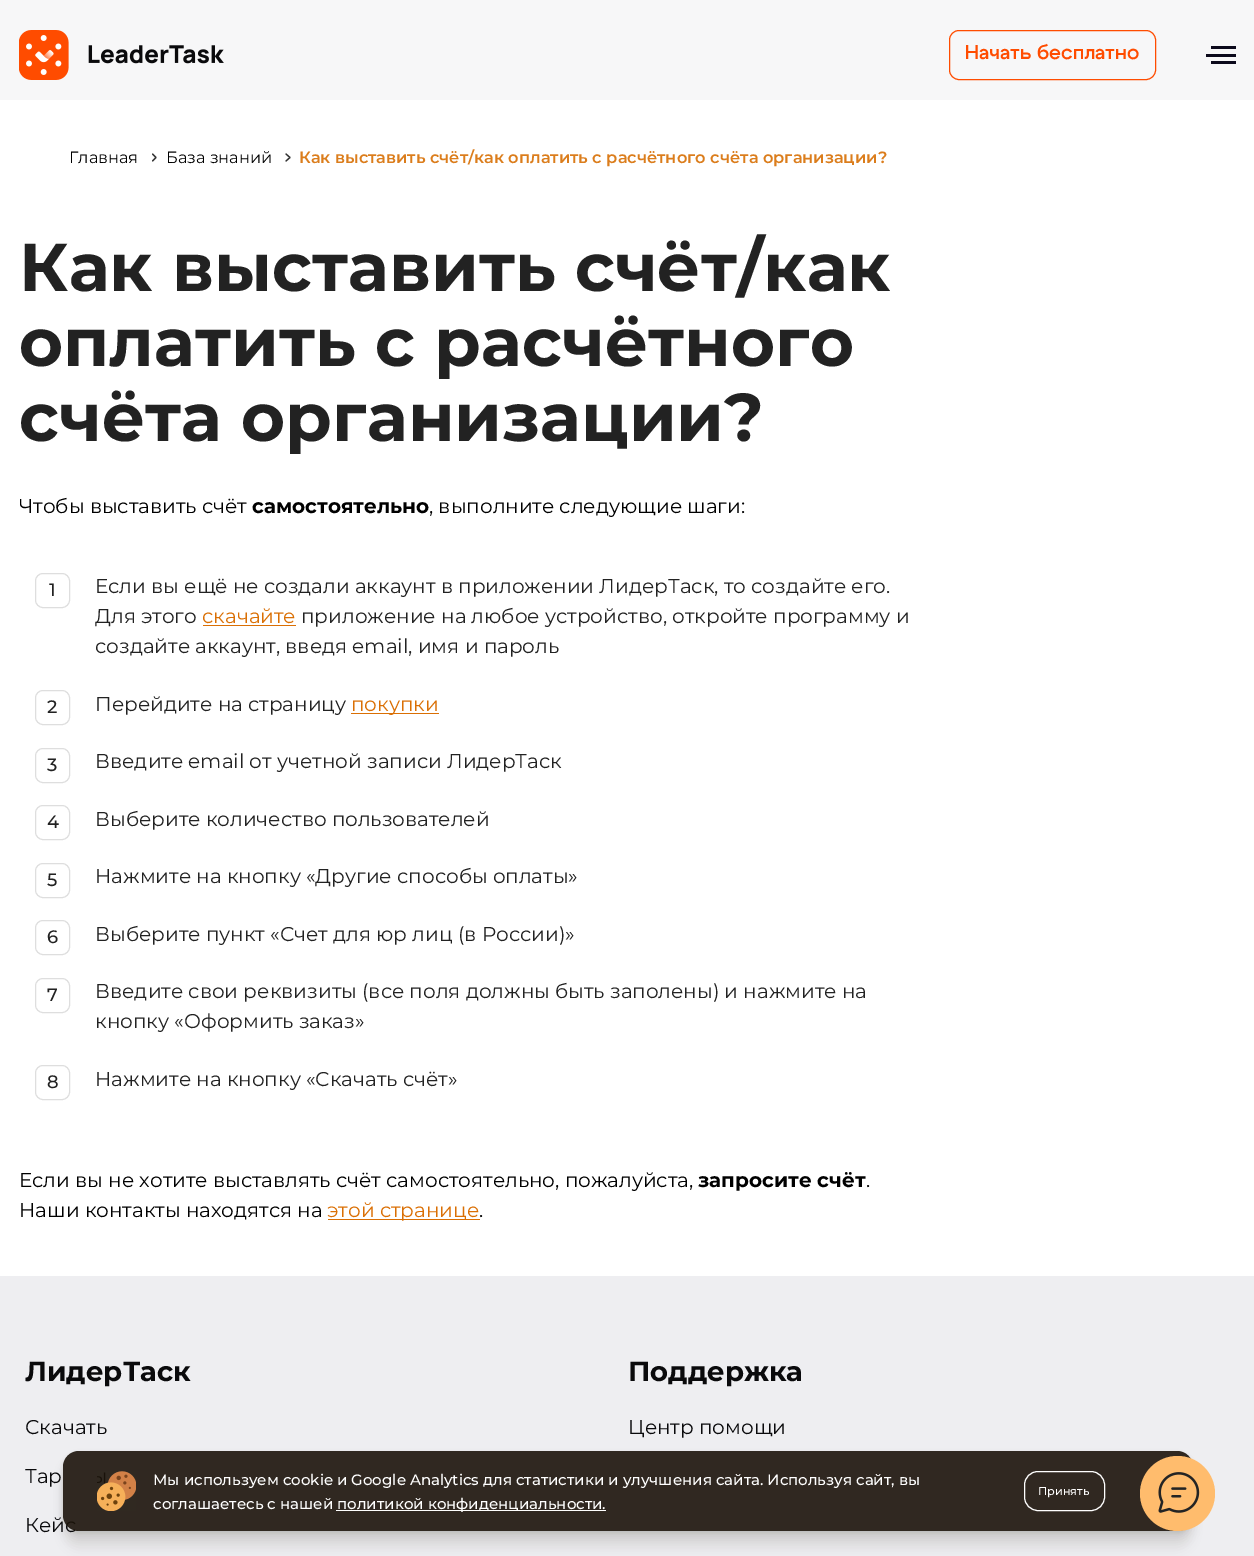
%!PS
<< /PageSize [1254 1556] /PageUsesTransparency true >> setpagedevice
/m/moveto load def
/l/rlineto load def
/c/rcurveto load def
/z/closepath load def
/f/fill load def
/s/stroke load def
/q/gsave load def
/Q_/grestore load def
/w/setlinewidth load def
/C { dup -16 bitshift 255 div exch dup -8 bitshift 255 and 255 div exch 255 and 255 div setrgbcolor } def
/F { [ exch dup neg 0 0 3 -1 roll 0 0 ] selectfont } def
/T { moveto show } def
/R { rectfill } def
/A { dup .setfillconstantalpha .setstrokeconstantalpha } def
/O { newpath 0 360 arc closepath } def
/Q { 5 dict begin { /r /h /w /y /x } { exch def } forall
  x r add y moveto x w add y 2 copy h add r arct x w add y h add x 1 index r arct
  x y h add x y r arct x y 2 copy exch w add exch r arct closepath end } def
/S { 12 dict begin { /a /b /q /h /w /y /x } { exch def } forall gsave /was 0 def
  9 -2 -9 { dup b mul 4 div /e exch def 1 sub .425 mul 2.718 exch exp 1 add a .99 .min exch div /now exch def
    1 1 now sub 1 was sub div sub A /was now def
    w h .min e 2 mul add 0 gt { x e sub y e sub w e 2 mul add h e 2 mul add
      q e add b .6 mul add w h .min 2 div e add .min 0 .max Q fill } if } for grestore end } def
/I { 5 dict begin { /h /w /y /x /name } { exch def } forall
  gsave x y translate w h scale
  w h 8 [w 0 0 h 0 0] name (r) file false 3 colorimage grestore end } def
0 .pushpdf14devicefilter
0 1556 translate 1 -1 scale
4 setmiterlimit
16#FFFFFF C
0 0 1254 1556 R
16#F7F7F8 C
0 0 1254 100 R
(1.rgb) 19 30 205 50 I
16#FF4C00 C
949.5 30.5 206 49 9.5 Q s
/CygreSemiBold-SemiBold 20 F
(Начать бесплатно) 965 59 T
16#0C0A1C C
1211 46 25 3 R
1206 54 30 3 R
1211 61 25 3 R
/Montserrat-Regular 16.25 F
16#000000 C
(Главная) 69 163 T
16#333333 C
1.2 w
1 setlinecap
1 setlinejoin
152.5 161 m 3.5 -3.5 l -3.5 -3.5 l s
16#000000 C
(База знаний) 166 163 T
16#333333 C
286 161 m 4 -3.5 l -4 -3.5 l s
/Montserrat-SemiBold 16.25 F
16#DB7D1C C
(Как выставить счёт/как оплатить с расчётного счёта организации?) 299 163 T
/Montserrat-Bold 67.5 F
16#222222 C
(Как выставить счёт/как) 19 291 T
(оплатить с расчётного) 19 366 T
(счёта организации?) 19 441 T
/Montserrat-Regular 20 F
16#000000 C
(Чтобы выставить счёт) 19 513 T
/Montserrat-Bold 20 F
(самостоятельно) 252 513 T
/Montserrat-Regular 20 F
(, выполните следующие шаги:) 429 513 T
16#DEDEDE C
1 w
0 setlinecap
0 setlinejoin
35.5 573.5 34 34 7.5 Q s
/Montserrat-Medium 18 F
16#222222 C
(1) 49 596 T
/Montserrat-Regular 20 F
(Если вы ещё не создали аккаунт в приложении ЛидерТаск, то создайте его.) 95 593 T
(Для этого) 95 623 T
16#DA6F04 C
(скачайте) 202 623 T
203 625 93 1 R
16#222222 C
(приложение на любое устройство, откройте программу и) 301 623 T
(создайте аккаунт, введя email, имя и пароль) 95 653 T
16#DEDEDE C
35.5 690.5 34 34 7.5 Q s
/Montserrat-Medium 18 F
16#222222 C
(2) 47 713 T
/Montserrat-Regular 20 F
(Перейдите на страницу) 95 711 T
16#DA6F04 C
351 713 88 1 R
(покупки) 351 711 T
16#DEDEDE C
35.5 748.5 34 34 7.5 Q s
/Montserrat-Medium 18 F
16#222222 C
(3) 47 771 T
/Montserrat-Regular 20 F
(Введите email от учетной записи ЛидерТаск) 95 768 T
16#DEDEDE C
35.5 805.5 34 34 7.5 Q s
/Montserrat-Medium 18 F
16#222222 C
(4) 47 828 T
/Montserrat-Regular 20 F
(Выберите количество пользователей) 95 826 T
16#DEDEDE C
35.5 863.5 34 34 7.5 Q s
/Montserrat-Medium 18 F
16#222222 C
(5) 47 886 T
/Montserrat-Regular 20 F
(Нажмите на кнопку «Другие способы оплаты») 95 883 T
16#DEDEDE C
35.5 920.5 34 34 7.5 Q s
/Montserrat-Medium 18 F
16#222222 C
(6) 47 943 T
/Montserrat-Regular 20 F
(Выберите пункт «Счет для юр лиц \(в России\)») 95 941 T
16#DEDEDE C
35.5 978.5 34 34 7.5 Q s
/Montserrat-Medium 18 F
16#222222 C
(7) 47 1001 T
/Montserrat-Regular 20 F
(Введите свои реквизиты \(все поля должны быть заполены\) и нажмите на) 95 998 T
(кнопку «Оформить заказ») 95 1028 T
16#DEDEDE C
35.5 1065.5 34 34 7.5 Q s
/Montserrat-Medium 18 F
16#222222 C
(8) 47 1088 T
/Montserrat-Regular 20 F
(Нажмите на кнопку «Скачать счёт») 95 1086 T
16#000000 C
(Если вы не хотите выставлять счёт самостоятельно, пожалуйста,) 19 1187 T
/Montserrat-Bold 20 F
(запросите счёт) 698 1187 T
/Montserrat-Regular 20 F
(.) 866 1187 T
(Наши контакты находятся на) 19 1217 T
16#DA6F04 C
328 1219 152 1 R
(этой странице) 327 1217 T
16#000000 C
(.) 479 1217 T
16#EEEEF1 C
0 1276 1254 280 R
/Montserrat-Bold 27.5 F
16#0A0A0C C
(ЛидерТаск) 25 1381 T
/Montserrat-Regular 20 F
(Скачать) 25 1434 T
(Тар) 25 1483 T
(Кейс) 25 1532 T
/Montserrat-Bold 27.5 F
(Поддержка) 628 1381 T
/Montserrat-Regular 20 F
(Центр помощи) 628 1434 T
q
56 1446 m 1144 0 l 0 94 l -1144 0 l z 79 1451 m 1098 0 l 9 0 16 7 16 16 c 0 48 l 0 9 -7 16 -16 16 c -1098 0 l -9 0 -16 -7 -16 -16 c 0 -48 l 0 -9 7 -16 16 -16 c z eoclip newpath
16#1A130A C
63 1453 1130 80 16 2 .1 S
Q_
q
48 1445 m 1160 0 l 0 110 l -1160 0 l z 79 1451 m 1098 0 l 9 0 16 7 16 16 c 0 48 l 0 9 -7 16 -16 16 c -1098 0 l -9 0 -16 -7 -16 -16 c 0 -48 l 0 -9 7 -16 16 -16 c z eoclip newpath
16#1A130A C
63 1460 1130 80 16 4.5 .09 S
Q_
q
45 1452 m 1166 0 l 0 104 l -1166 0 l z 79 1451 m 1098 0 l 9 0 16 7 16 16 c 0 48 l 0 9 -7 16 -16 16 c -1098 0 l -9 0 -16 -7 -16 -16 c 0 -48 l 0 -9 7 -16 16 -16 c z eoclip newpath
16#1A130A C
63 1470 1130 80 16 5.5 .05 S
Q_
0.9 A
16#1B130A C
63 1451 1130 80 16 Q f
1 A
16#FFBC6D C
1177.5 1493.5 37.5 O f
(2.rgb) 1158 1472 42 41 I
(3.rgb) 97 1471 39 40 I
/Montserrat-Medium 15 F
16#FFFFFF C
(Мы используем cookie и Google Analytics для статистики и улучшения сайта. Используя сайт, вы) 153 1485 T
(соглашаетесь с нашей) 153 1509 T
336 1510 270 1 R
(политикой конфиденциальности.) 337 1509 T
1024.5 1471.5 80 39 13.5 Q s
/Montserrat-Medium 11.25 F
(Принять) 1038 1495 T
.poppdf14devicefilter showpage
